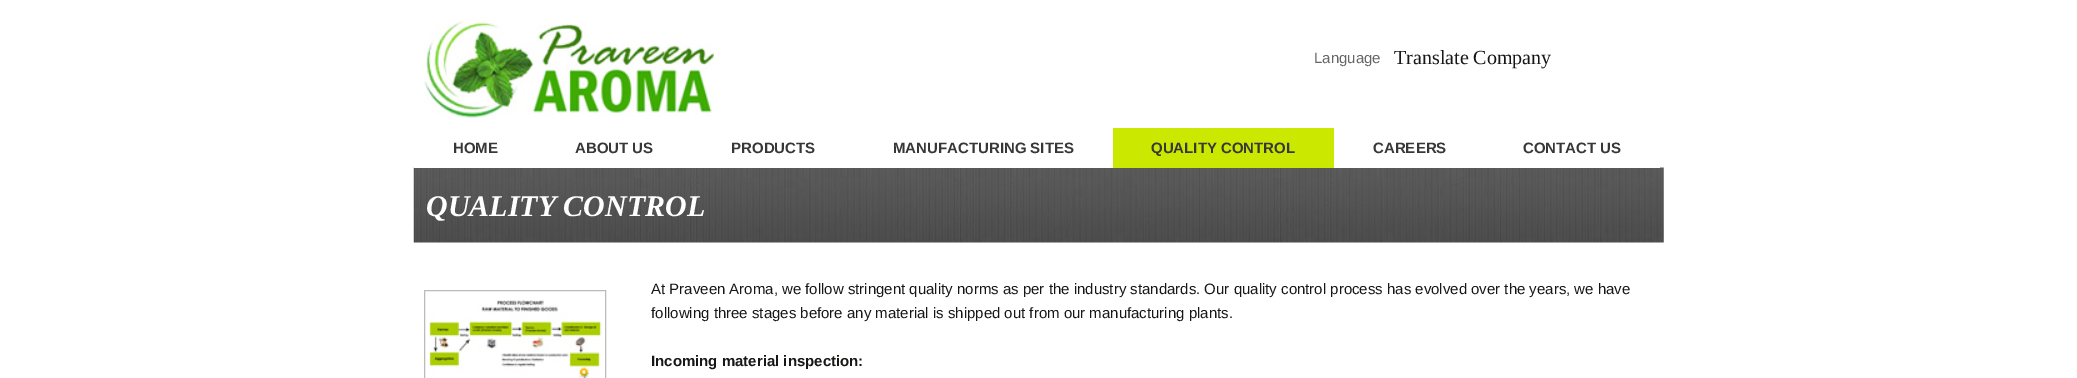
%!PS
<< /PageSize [2077 378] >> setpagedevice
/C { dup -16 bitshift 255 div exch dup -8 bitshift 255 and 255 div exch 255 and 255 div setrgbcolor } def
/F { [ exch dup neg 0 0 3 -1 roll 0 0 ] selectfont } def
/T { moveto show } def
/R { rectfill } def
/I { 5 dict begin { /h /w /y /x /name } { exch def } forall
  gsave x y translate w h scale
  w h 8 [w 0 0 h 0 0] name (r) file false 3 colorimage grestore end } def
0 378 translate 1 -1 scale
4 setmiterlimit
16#FFFFFF C
0 0 2077 378 R
(1.rgb) 424 20 290 98 I
/LiberationSans-Regular 15 F
16#666666 C
(Language) 1314 63 T
/LiberationSerif-Regular 20 F
16#171816 C
(Translate Company) 1394 64 T
(2.rgb) 413 167 1251 76 I
16#FFFFFF C
414 167 122 1 R
/LiberationSans-Bold 15 F
16#373737 C
(HOME) 453 153 T
(ABOUT US) 575 153 T
16#FFFFFF C
536 167 577 1 R
16#373737 C
(PRODUCTS) 731 153 T
(MANUFACTURING SITES) 893 153 T
16#CAE800 C
1113 128 221 40 R
16#373737 C
(QUALITY CONTROL) 1151 153 T
16#FFFFFF C
1334 167 326 1 R
16#373737 C
(CAREERS) 1373 153 T
(CONTACT US) 1523 153 T
/LiberationSerif-BoldItalic 30 F
16#FFFFFF C
(QUALITY CONTROL) 426 216 T
16#BBBBBB C
424.5 290.5 181 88 rectstroke
(3.rgb) 429 300 173 78 I
/LiberationSans-Regular 15 F
16#171816 C
(At Praveen Aroma, we follow stringent quality norms as per the industry standards. Our quality control process has evolved over the years, we have) 651 294 T
(following three stages before any material is shipped out from our manufacturing plants.) 651 318 T
/LiberationSans-Bold 15 F
(Incoming material inspection:) 651 366 T
showpage
